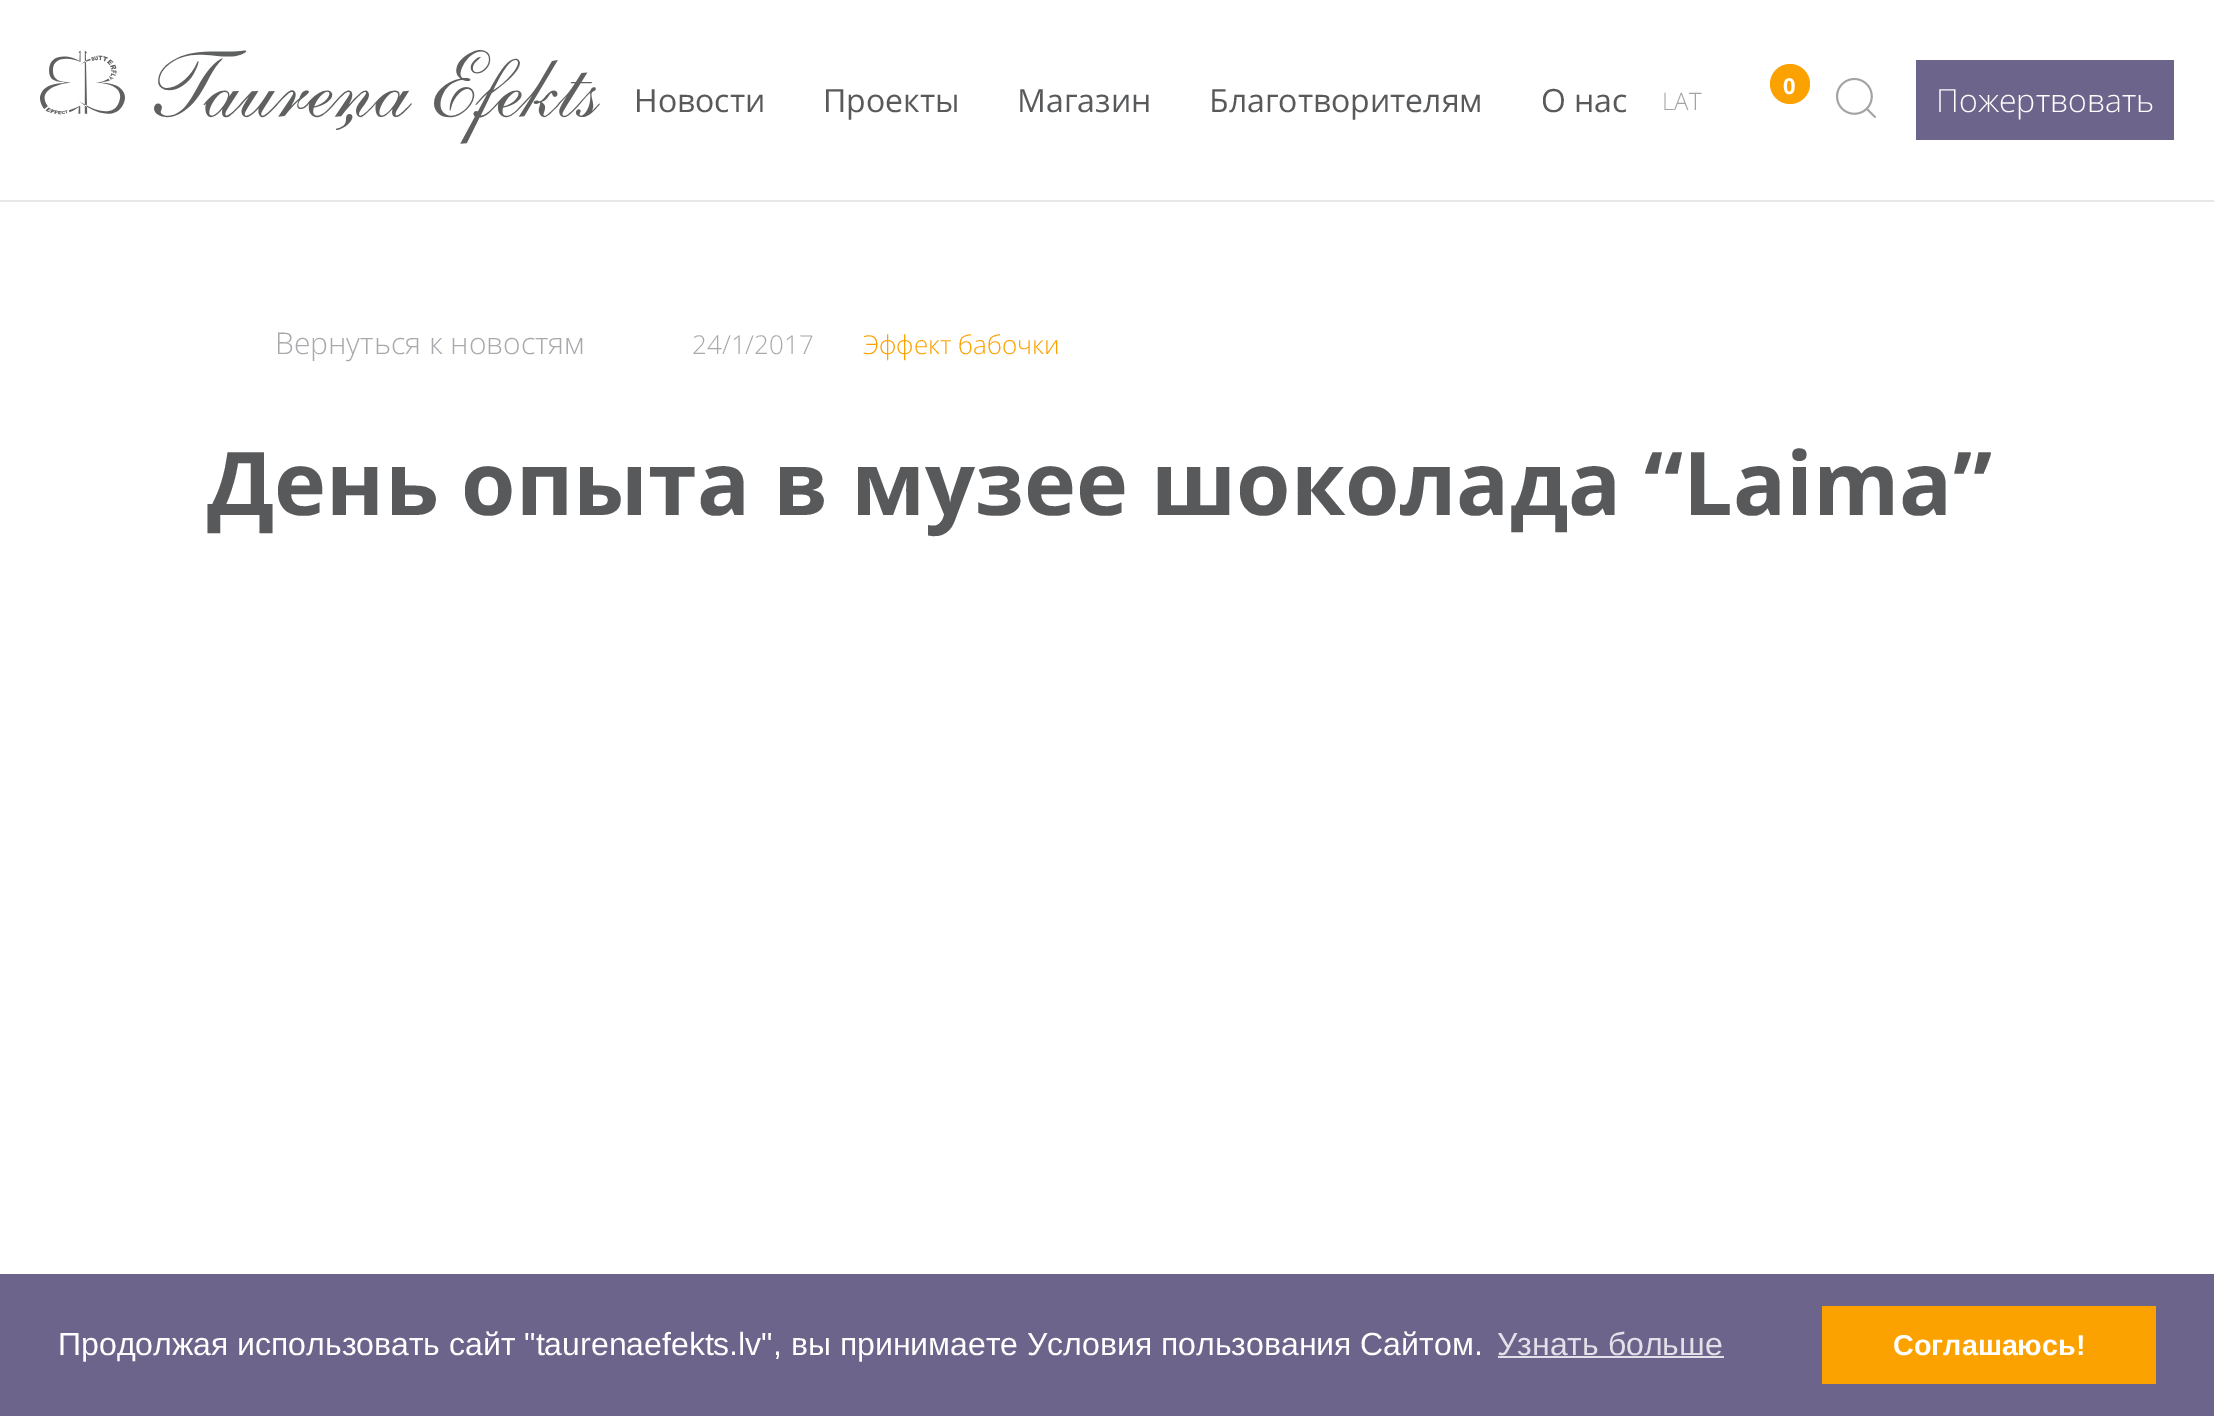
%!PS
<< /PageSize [2214 1416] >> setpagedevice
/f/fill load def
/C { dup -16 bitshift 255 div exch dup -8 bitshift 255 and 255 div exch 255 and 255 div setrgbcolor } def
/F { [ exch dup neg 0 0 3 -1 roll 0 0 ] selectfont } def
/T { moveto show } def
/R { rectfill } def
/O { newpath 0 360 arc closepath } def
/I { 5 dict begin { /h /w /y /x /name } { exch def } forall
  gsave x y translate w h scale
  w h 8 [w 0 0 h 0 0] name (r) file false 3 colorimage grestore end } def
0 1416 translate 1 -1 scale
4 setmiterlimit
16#FFFFFF C
0 0 2214 1416 R
16#E6E7E8 C
0 200 2214 2 R
(1.rgb) 40 50 560 94 I
/OpenSans-Regular 32 F
16#58595B C
(Новости) 634 112 T
(Проекты) 823 112 T
(Магазин) 1017 112 T
(Благотворителям) 1209 112 T
(О нас) 1541 112 T
/OpenSans-Light 24 F
16#A1A3A6 C
(LAT) 1662 110 T
16#FBA100 C
1790 84 20 O f
/OpenSans-Bold 22 F
16#FFFFFF C
(0) 1783 94 T
(2.rgb) 1836 78 40 40 I
16#6C648B C
1916 60 258 80 R
/OpenSans-Light 32 F
16#FFFFFF C
(Пожертвовать) 1936 112 T
/OpenSans-Light 30 F
16#A7A9AC C
(Вернуться к новостям) 275 354 T
/OpenSans-Light 26 F
(24/1/2017) 692 354 T
16#FBA100 C
(Эффект бабочки) 863 354 T
/OpenSans-Bold 88 F
16#58595B C
(День опыта в музее шоколада “Laima”) 207 515 T
16#6C648B C
0 1274 2214 142 R
/LiberationSans-Regular 32 F
16#FFFFFF C
(Продолжая использовать сайт "taurenaefekts.lv", вы принимаете Условия пользования Сайтом.) 58 1355 T
16#E2E0E8 C
(Узнать больше) 1497 1355 T
1498 1356 226 2 R
16#FBA100 C
1822 1306 334 78 R
/LiberationSans-Bold 28.75 F
16#FFFFFF C
(Соглашаюсь!) 1893 1355 T
showpage
